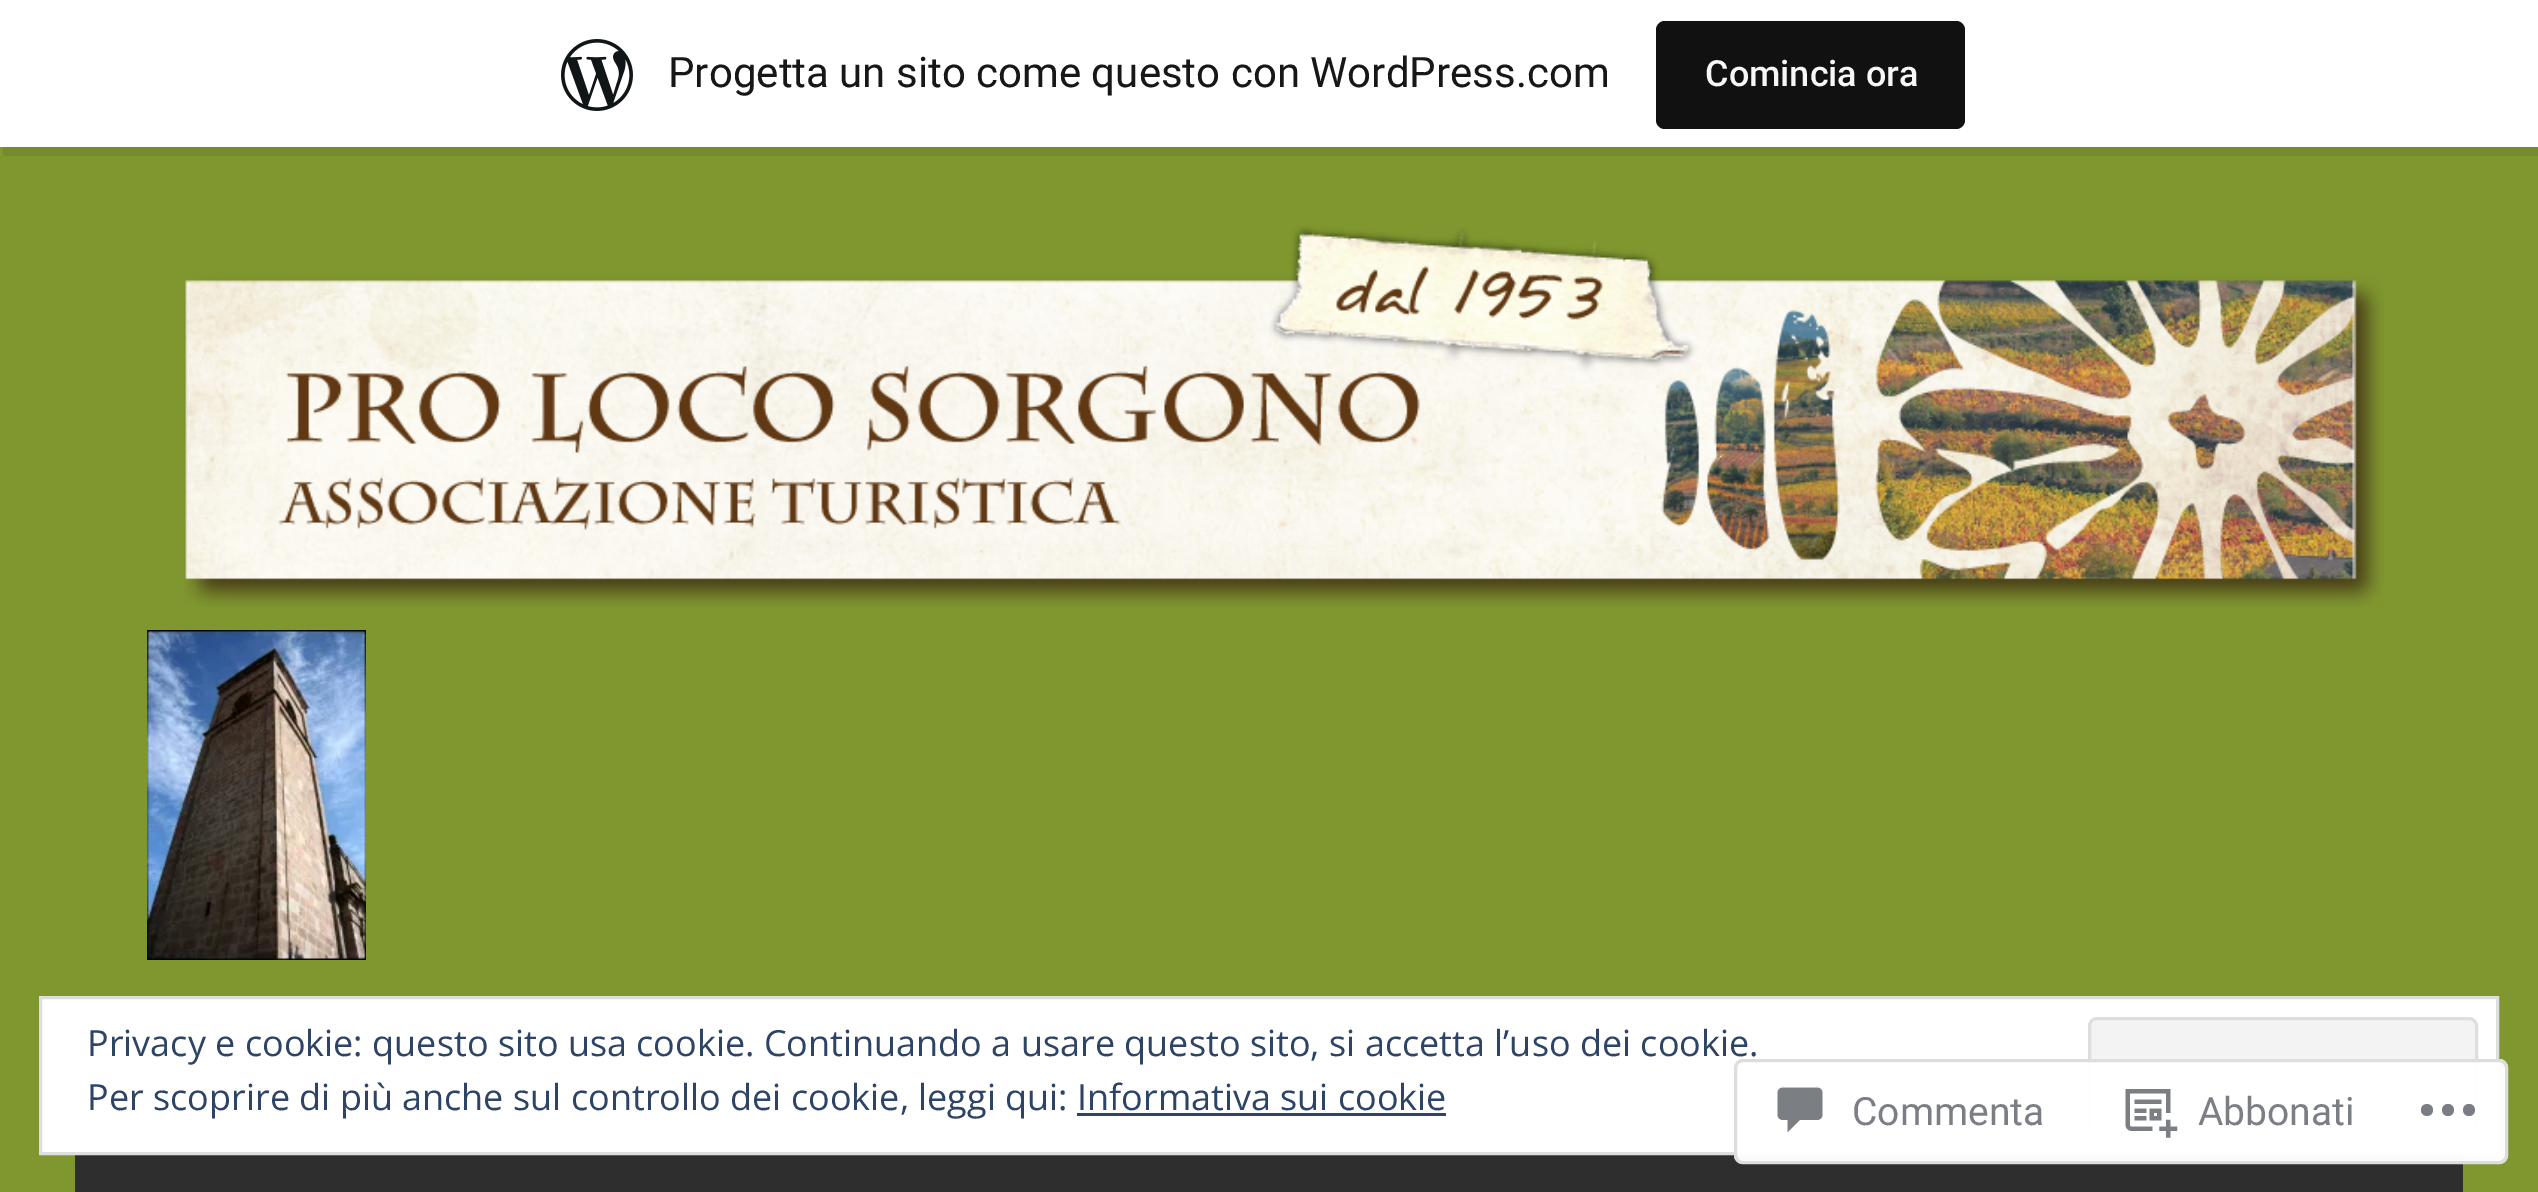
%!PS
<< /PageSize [2538 1192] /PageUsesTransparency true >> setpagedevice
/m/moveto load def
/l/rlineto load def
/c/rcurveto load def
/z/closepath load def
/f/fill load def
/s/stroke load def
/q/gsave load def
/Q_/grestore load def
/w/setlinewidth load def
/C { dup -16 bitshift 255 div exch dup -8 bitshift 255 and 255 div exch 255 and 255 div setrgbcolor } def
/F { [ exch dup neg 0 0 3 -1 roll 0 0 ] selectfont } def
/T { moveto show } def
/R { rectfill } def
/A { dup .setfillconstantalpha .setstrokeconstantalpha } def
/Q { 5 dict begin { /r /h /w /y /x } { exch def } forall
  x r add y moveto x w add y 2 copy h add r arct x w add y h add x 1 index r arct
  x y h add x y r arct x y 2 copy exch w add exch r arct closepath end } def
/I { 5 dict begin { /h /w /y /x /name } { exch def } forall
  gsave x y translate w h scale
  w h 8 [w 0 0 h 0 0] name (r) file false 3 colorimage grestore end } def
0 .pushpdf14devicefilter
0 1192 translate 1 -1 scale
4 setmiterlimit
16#80972F C
0 0 2538 1192 R
0.08 A
16#000000 C
3 147 m 0 9 l 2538 0 l 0 -147 l -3 0 l 0 138 l z f
1 A
16#FFFFFF C
0 0 2538 147 R
(1.rgb) 561 39 72 72 I
/Roboto-Regular 42 F
16#171717 C
(Progetta un sito come questo con WordPress.com) 668 87 T
16#111111 C
1656 21 309 108 9 Q f
/Roboto-Medium 36 F
16#F6F7F7 C
(Comincia ora) 1705 86 T
(2.rgb) 184 226 2200 381 I
(3.rgb) 147 630 219 330 I
16#2E2E2E C
75 1155 2388 37 R
16#FFFFFF C
40.5 997.5 m 2457 0 l 0 156 l -2457 0 l z q f Q_
16#DEDEDE C
3 w
s
/OpenSans-Regular 36 F
16#2E4467 C
(Privacy e cookie: questo sito usa cookie. Continuando a usare questo sito, si accetta l’uso dei cookie.) 87 1056 T
16#F3F3F3 C
2089.5 1018.5 387 114 7.5 Q q f Q_
16#DEDEDE C
s
16#2E4467 C
(Per scoprire di più anche sul controllo dei cookie, leggi qui: Informativa sui cookie) 87 1110 T
1077 1113 369 3 R
0.98 A
16#FFFFFF C
1734 1059 774 105 9 Q f
16#DCDCDE C
1735.5 1060.5 771 102 7.5 Q s
1 A
(4.rgb) 1777 1087 46 46 I
/Roboto-Regular 39 F
16#7B7F85 C
(Commenta) 1852 1125 T
(5.rgb) 2125 1089 53 49 I
(Abbonati) 2198 1125 T
16#7A7E84 C
2433 1110 m 0 8 -12 8 -12 0 c 0 -8 12 -8 12 0 c z 2469 1104 m -8 0 -8 12 0 12 c 8 0 8 -12 0 -12 c z 2448 1104 m -8 0 -8 12 0 12 c 8 0 8 -12 0 -12 c z f
.poppdf14devicefilter showpage
